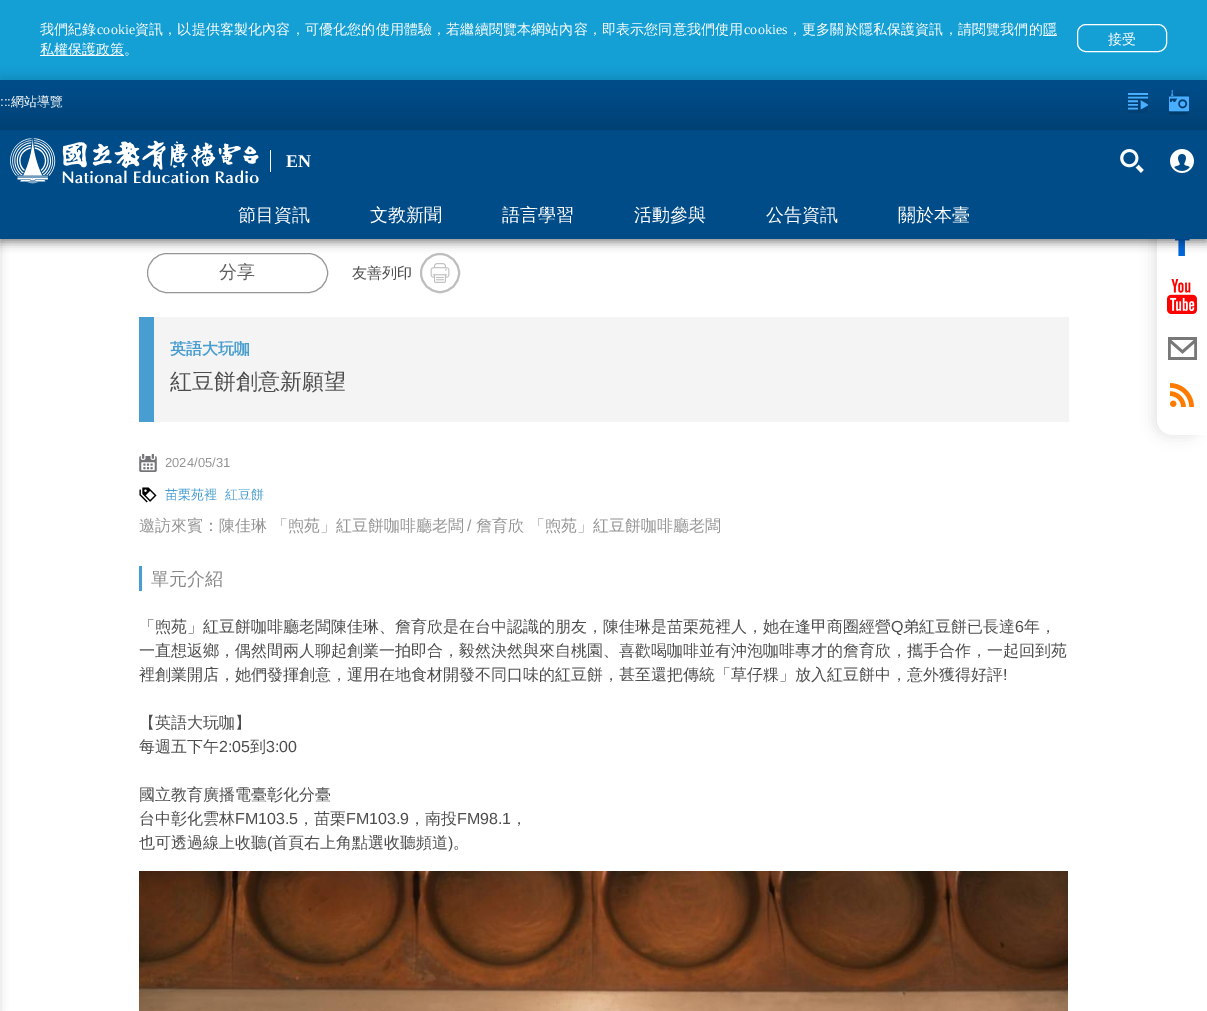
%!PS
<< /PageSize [1207 1011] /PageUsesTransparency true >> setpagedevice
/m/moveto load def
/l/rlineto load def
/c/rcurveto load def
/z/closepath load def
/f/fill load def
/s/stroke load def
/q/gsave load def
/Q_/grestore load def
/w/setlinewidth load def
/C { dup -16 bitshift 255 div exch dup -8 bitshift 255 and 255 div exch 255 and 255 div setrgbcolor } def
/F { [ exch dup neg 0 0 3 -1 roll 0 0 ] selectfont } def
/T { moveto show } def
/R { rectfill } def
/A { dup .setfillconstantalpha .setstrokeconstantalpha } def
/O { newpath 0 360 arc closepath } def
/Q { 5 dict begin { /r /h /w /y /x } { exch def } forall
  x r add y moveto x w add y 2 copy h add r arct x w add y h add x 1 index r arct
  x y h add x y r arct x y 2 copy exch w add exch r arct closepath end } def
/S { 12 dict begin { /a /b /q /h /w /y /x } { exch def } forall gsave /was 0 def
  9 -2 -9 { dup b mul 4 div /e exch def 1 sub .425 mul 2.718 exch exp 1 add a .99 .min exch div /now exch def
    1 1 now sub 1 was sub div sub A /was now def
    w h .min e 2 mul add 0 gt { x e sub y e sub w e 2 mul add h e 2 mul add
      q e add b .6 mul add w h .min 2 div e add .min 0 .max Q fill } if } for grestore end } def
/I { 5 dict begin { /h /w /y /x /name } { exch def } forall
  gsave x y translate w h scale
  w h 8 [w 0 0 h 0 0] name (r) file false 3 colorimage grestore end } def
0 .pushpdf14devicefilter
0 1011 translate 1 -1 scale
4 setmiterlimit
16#FFFFFF C
0 0 1207 1011 R
16#000000 C
-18 0 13 1011 0 6 .4 S
16#979797 C
147.5 253.5 180 39 19.5 Q s
(6.rgb) 430 263 20 20 I
16#BEBEBE C
2 w
440 273 19 O s
16#000000 C
1153 202 50 235 16 6.5 .1 S
16#FFFFFF C
1173 200 m 34 0 l 0 235 l -34 0 l -9 0 -16 -7 -16 -16 c 0 -203 l 0 -9 7 -16 16 -16 c z f
(10.rgb) 1175 239 15 17 I
16#000000 C
0 3 1207 239 0 5 .5 S
16#149FD5 C
0 0 1207 80 R
/WenQuanYiZenHei-Medium 14 F
16#FFFFFF C
40 34 m .15 0 (我們紀錄) ashow
/LiberationSerif-Regular 14 F
97 34 m .15 0 (cookie) ashow
/WenQuanYiZenHei-Medium 14 F
135 34 m .15 0 (資訊，以提供客製化內容，可優化您的使用體驗，若繼續閱覽本網站內容，即表示您同意我們使用) ashow
/LiberationSerif-Regular 14 F
744 34 m .15 0 (cookies) ashow
/WenQuanYiZenHei-Medium 14 F
788 34 m .15 0 (，更多關於隱私保護資訊，請閱覽我們的) ashow
1043 35 14 1 R
(隱) 1043 34 T
40 55 84 1 R
(私權保護政策。) 40 54 T
1 w
1077.5 24.5 89 27 8.5 Q s
(接受) 1108 44 T
16#004C89 C
0 130 1207 109 R
(3.rgb) 10 138 249 46 I
16#000000 C
0 76 1207 50 0 5 .13 S
q 0 80 m 1207 0 l 0 50 l -1207 0 l z clip newpath
<< /ShadingType 2 /ColorSpace /DeviceRGB /Coords [604 80 604 130] /Extend [true true] /Function << /FunctionType 3 /Domain [0 1] /Functions [<< /FunctionType 2 /Domain [0 1] /C0 [0 .298 .537] /C1 [0 .298 .537] /N 1 >> << /FunctionType 2 /Domain [0 1] /C0 [0 .298 .537] /C1 [0 .255 .455] /N 1 >>] /Bounds [.17] /Encode [0 1 0 1] >> >> shfill Q_
/LiberationSans-Regular 13 F
16#FFFFFF C
(:::) 0 106 T
/WenQuanYiZenHei-Medium 13 F
(網站導覽) 11 106 T
(1.rgb) 1128 93 20 20 I
(2.rgb) 1169 90 20 25 I
270 150 1 22 R
/LiberationSerif-Bold 18 F
(EN) 286 167 T
(4.rgb) 1120 149 24 24 I
(5.rgb) 1170 149 24 24 I
/WenQuanYiZenHei-Medium 18 F
(節目資訊) 238 221 T
(文教新聞) 370 221 T
(語言學習) 502 221 T
(活動參與) 634 221 T
(公告資訊) 766 221 T
(關於本臺) 898 221 T
16#5E5E5E C
(分享) 219 278 T
/WenQuanYiZenHei-Medium 15 F
16#4D4D4D C
(友善列印) 352 278 T
16#F4F4F4 C
154 317 915 105 R
16#489DD1 C
139 317 15 105 R
q
170 341 883 16 rectclip
/WenQuanYiZenHei-Bold 16 F
(英語大玩咖) 170 354 T
Q_
q
170 365 648 33 rectclip
/WenQuanYiZenHei-Medium 22 F
16#4D4D4D C
(紅豆餅創意新願望) 170 389 T
Q_
(7.rgb) 139 454 18 18 I
/LiberationSans-Regular 13 F
16#959595 C
(2024/05/31) 165 467 T
(8.rgb) 139 487 18 16 I
/WenQuanYiZenHei-Medium 13 F
16#489DD1 C
(苗栗苑裡) 165 499 T
(紅豆餅) 225 499 T
/WenQuanYiZenHei-Medium 16 F
16#959595 C
(邀訪來賓：陳佳琳 「煦苑」紅豆餅咖啡廳老闆) 139 531 T
/LiberationSans-Regular 16 F
(/) 467 531 T
/WenQuanYiZenHei-Medium 16 F
(詹育欣 「煦苑」紅豆餅咖啡廳老闆) 476 531 T
16#489DD1 C
139 566 3 25 R
/WenQuanYiZenHei-Medium 18 F
16#888888 C
(單元介紹) 151 585 T
/WenQuanYiZenHei-Medium 16 F
16#4D4D4D C
(「煦苑」紅豆餅咖啡廳老闆陳佳琳、詹育欣是在台中認識的朋友，陳佳琳是苗栗苑裡人，她在逢甲商圈經營) 139 632 T
/LiberationSans-Regular 16 F
(Q) 891 632 T
/WenQuanYiZenHei-Medium 16 F
(弟紅豆餅已長達) 903 632 T
/LiberationSans-Regular 16 F
(6) 1015 632 T
/WenQuanYiZenHei-Medium 16 F
(年，) 1024 632 T
(一直想返鄉，偶然間兩人聊起創業一拍即合，毅然決然與來自桃園、喜歡喝咖啡並有沖泡咖啡專才的詹育欣，攜手合作，一起回到苑) 139 656 T
(裡創業開店，她們發揮創意，運用在地食材開發不同口味的紅豆餅，甚至還把傳統「草仔粿」放入紅豆餅中，意外獲得好評) 139 680 T
/LiberationSans-Regular 16 F
(!) 1003 680 T
/WenQuanYiZenHei-Medium 16 F
(【英語大玩咖】) 139 728 T
(每週五下午) 139 752 T
/LiberationSans-Regular 16 F
(2:05) 219 752 T
/WenQuanYiZenHei-Medium 16 F
(到) 250 752 T
/LiberationSans-Regular 16 F
(3:00) 266 752 T
/WenQuanYiZenHei-Medium 16 F
(國立教育廣播電臺彰化分臺) 139 800 T
(台中彰化雲林) 139 824 T
/LiberationSans-Regular 16 F
(FM103.5) 235 824 T
/WenQuanYiZenHei-Medium 16 F
(，苗栗) 298 824 T
/LiberationSans-Regular 16 F
(FM103.9) 346 824 T
/WenQuanYiZenHei-Medium 16 F
(，南投) 409 824 T
/LiberationSans-Regular 16 F
(FM98.1) 457 824 T
/WenQuanYiZenHei-Medium 16 F
(，) 511 824 T
(也可透過線上收聽) 139 848 T
/LiberationSans-Regular 16 F
(\() 267 848 T
/WenQuanYiZenHei-Medium 16 F
(首頁右上角點選收聽頻道) 272 848 T
/LiberationSans-Regular 16 F
(\)) 448 848 T
/WenQuanYiZenHei-Medium 16 F
(。) 453 848 T
(9.rgb) 139 871 929 140 I
(11.rgb) 1167 279 30 35 I
(12.rgb) 1168 337 29 23 I
(13.rgb) 1170 383 24 24 I
.poppdf14devicefilter showpage
